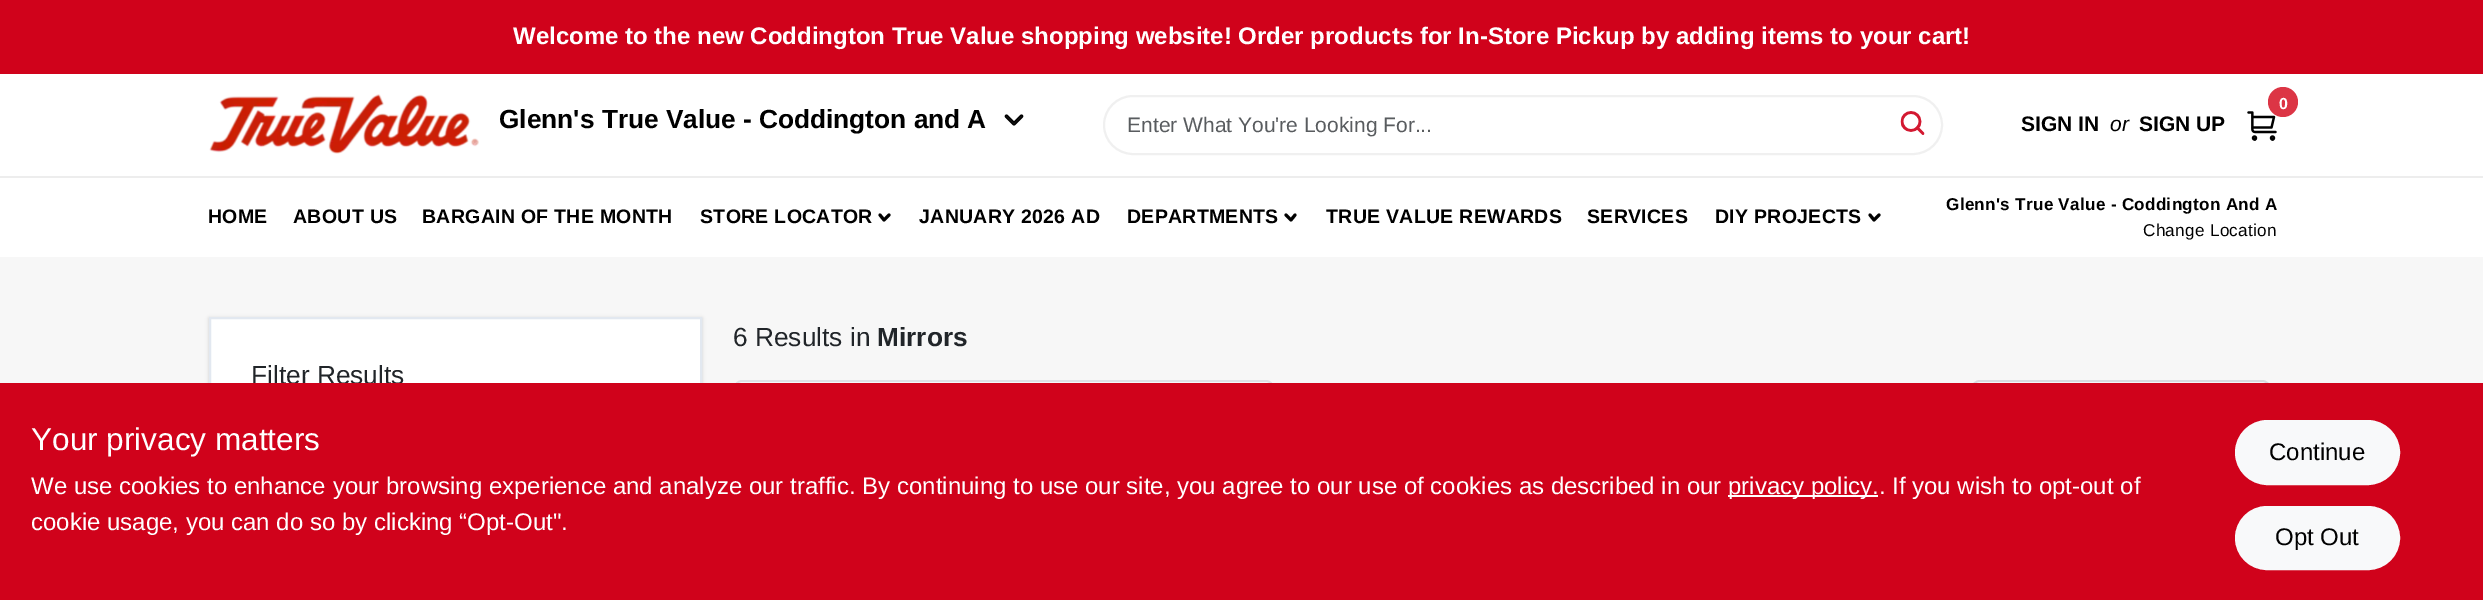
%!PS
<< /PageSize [2483 600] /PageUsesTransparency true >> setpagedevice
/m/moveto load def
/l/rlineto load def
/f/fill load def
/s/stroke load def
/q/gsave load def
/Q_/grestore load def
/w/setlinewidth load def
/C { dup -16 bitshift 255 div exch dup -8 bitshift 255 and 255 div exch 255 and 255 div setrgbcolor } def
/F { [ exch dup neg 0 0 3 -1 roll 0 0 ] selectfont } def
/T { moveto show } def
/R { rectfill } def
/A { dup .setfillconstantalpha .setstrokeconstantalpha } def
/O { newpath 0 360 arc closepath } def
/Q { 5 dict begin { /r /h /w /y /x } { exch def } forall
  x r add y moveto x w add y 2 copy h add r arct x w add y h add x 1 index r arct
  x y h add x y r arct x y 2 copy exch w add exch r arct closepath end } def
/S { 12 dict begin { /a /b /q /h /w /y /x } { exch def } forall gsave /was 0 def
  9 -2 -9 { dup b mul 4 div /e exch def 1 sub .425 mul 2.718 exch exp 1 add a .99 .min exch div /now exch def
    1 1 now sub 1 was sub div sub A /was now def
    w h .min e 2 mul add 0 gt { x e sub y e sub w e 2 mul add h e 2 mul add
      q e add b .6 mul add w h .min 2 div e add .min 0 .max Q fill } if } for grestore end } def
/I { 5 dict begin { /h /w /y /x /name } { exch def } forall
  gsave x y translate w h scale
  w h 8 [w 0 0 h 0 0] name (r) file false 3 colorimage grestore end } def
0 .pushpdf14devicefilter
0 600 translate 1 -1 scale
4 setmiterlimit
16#F7F7F7 C
0 0 2483 600 R
16#D0021B C
0 0 2483 74 R
/LiberationSans-Bold 24 F
16#FFFFFF C
(Welcome to the new Coddington True Value shopping website! Order products for In-Store Pickup by adding items to your cart!) 513 44 T
0 74 2483 102 R
(1.rgb) 209 94 270 60 I
/LiberationSans-Bold 26.25 F
16#000000 C
(Glenn's True Value - Coddington and A) 499 128 T
(2.rgb) 1004 114 20 12 I
16#F0F0F0 C
2 w
1104 96 838 58 29 Q s
/LiberationSans-Regular 21 F
16#595C5F C
(Enter What You're Looking For...) 1127 132 T
(3.rgb) 1900 111 25 24 I
(4.rgb) 2247 111 30 30 I
16#DC3545 C
2283 102 15 O f
/LiberationSans-Bold 16 F
16#FFFFFF C
2279 109 m -2 0 (0) ashow
/LiberationSans-Bold 21 F
16#000000 C
(SIGN IN) 2021 131 T
/LiberationSans-Italic 21 F
(or) 2110 131 T
/LiberationSans-Bold 21 F
(SIGN UP) 2139 131 T
16#FFFFFF C
0 178 2483 79 R
16#EDEDED C
0 176 2483 2 R
/LiberationSans-Bold 19.5 F
16#000000 C
208 223 m .3 0 (HOME) ashow
293 223 m .3 0 (ABOUT US) ashow
422 223 m .3 0 (BARGAIN OF THE MONTH) ashow
700 223 m .3 0 (STORE LOCATOR) ashow
3 w
1 setlinecap
1 setlinejoin
889 215 m -5 5 l -4 -5 l s
919 223 m .3 0 (JANUARY 2026 AD) ashow
1127 223 m .3 0 (DEPARTMENTS) ashow
1295 215 m -4 5 l -5 -5 l s
1326 223 m .3 0 (TRUE VALUE REWARDS) ashow
1587 223 m .3 0 (SERVICES) ashow
1715 223 m .3 0 (DIY PROJECTS) ashow
1879 215 m -5 5 l -4 -5 l s
/LiberationSans-Bold 17.1 F
1946 210 m .3 0 (Glenn's True Value - Coddington And A) ashow
/LiberationSans-Regular 17.1 F
2143 236 m .3 0 (Change Location) ashow
/LiberationSans-Regular 26.25 F
16#212529 C
(6 Results in) 733 346 T
/LiberationSans-Bold 26.25 F
(Mirrors) 877 346 T
16#FFFFFF C
735 381 538 62 7 Q q f Q_
16#DEE2E6 C
2 w
0 setlinecap
0 setlinejoin
s
16#FFFFFF C
1972 381 298 61 8 Q q f Q_
16#D8DBDF C
s
16#000000 C
209 318 493 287 0 1.5 .06 S
209 318 493 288 0 2 .1 S
16#FFFFFF C
211 319 489 64 R
16#E2E8F0 C
210 318 491 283 rectstroke
/LiberationSans-Regular 26.25 F
16#212529 C
(Filter Results) 251 384 T
16#D0021B C
0 383 2483 217 R
/LiberationSans-Regular 31.5 F
16#FFFFFF C
(Your privacy matters) 31 450 T
/LiberationSans-Regular 24 F
(We use cookies to enhance your browsing experience and analyze our traffic. By continuing to use our site, you agree to our use of cookies as described in our) 31 494 T
1728 495 150 2 R
(privacy policy.. If you wish to opt-out of) 1728 494 T
(cookie usage, you can do so by clicking “Opt-Out".) 31 530 T
16#F8F9FA C
2236 421 163 63 31.5 Q q f Q_
s
16#000000 C
(Continue) 2269 460 T
16#F8F9FA C
2236 507 163 62 31 Q q f Q_
s
16#000000 C
(Opt Out) 2275 545 T
.poppdf14devicefilter showpage
